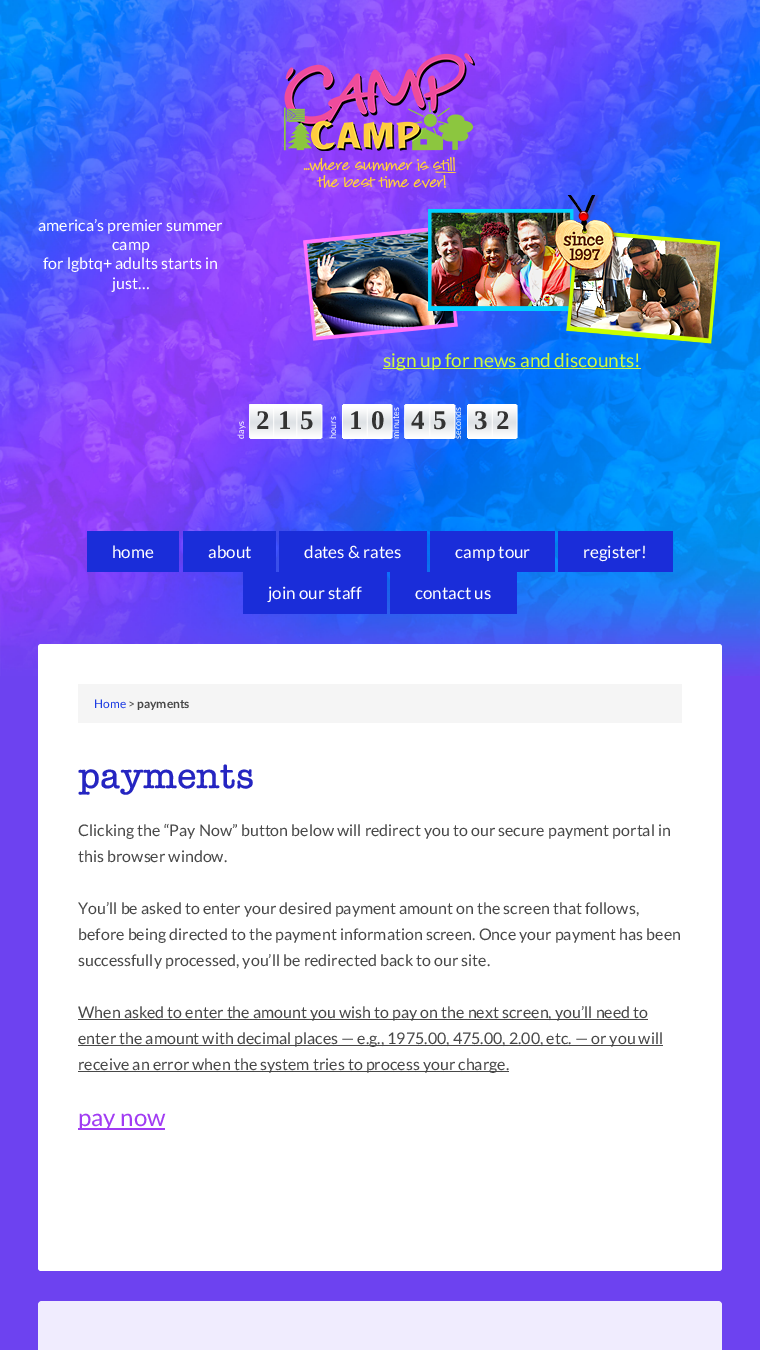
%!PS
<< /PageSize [760 1350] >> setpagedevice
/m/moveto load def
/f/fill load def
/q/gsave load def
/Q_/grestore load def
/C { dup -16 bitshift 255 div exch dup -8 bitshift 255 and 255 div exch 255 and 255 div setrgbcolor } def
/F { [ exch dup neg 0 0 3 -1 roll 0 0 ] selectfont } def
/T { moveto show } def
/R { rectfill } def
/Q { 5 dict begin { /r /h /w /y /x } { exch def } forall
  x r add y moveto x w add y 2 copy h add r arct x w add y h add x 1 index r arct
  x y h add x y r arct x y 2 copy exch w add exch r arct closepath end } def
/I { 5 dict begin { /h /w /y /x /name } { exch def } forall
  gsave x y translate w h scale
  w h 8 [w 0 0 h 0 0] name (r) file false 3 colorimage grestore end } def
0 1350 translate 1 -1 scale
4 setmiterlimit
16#6D42F0 C
0 0 760 1350 R
(1.rgb) 0 0 760 676 I
(2.rgb) 284 53 191 135 I
/Lato-Regular 16 F
16#FFFFFF C
(america’s premier summer) 38 231 T
(camp) 112 250 T
(for lgbtq+ adults starts in) 43 269 T
(just…) 112 289 T
(3.rgb) 303 195 417 149 I
16#CEFA40 C
383 368 258 1 R
/Lato-Regular 19 F
(sign up for news and discounts!) 383 367 T
(4.rgb) 249 404 74 35 I
/Lato-Regular 9 F
16#FFFFFF C
q 244 439 translate -90 rotate 0 0 m (days) show Q_
/LiberationSerif-Bold 27 F
16#333333 C
(2) 256 429 T
(1) 278 429 T
(5) 300 429 T
(5.rgb) 342 404 51 35 I
/Lato-Regular 9 F
16#FFFFFF C
q 336 439 translate -90 rotate 0 0 m (hours) show Q_
/LiberationSerif-Bold 27 F
16#333333 C
(1) 349 429 T
(0) 371 429 T
(6.rgb) 404 404 52 35 I
/Lato-Regular 9 F
16#FFFFFF C
q 399 439 translate -90 rotate 0 0 m (minutes) show Q_
/LiberationSerif-Bold 27 F
16#333333 C
(4) 411 429 T
(5) 433 429 T
(7.rgb) 467 404 51 35 I
/Lato-Regular 9 F
16#FFFFFF C
q 461 439 translate -90 rotate 0 0 m (seconds) show Q_
/LiberationSerif-Bold 27 F
16#333333 C
(3) 474 429 T
(2) 496 429 T
16#1A2DD9 C
87 531 92 41 R
/Lato-Regular 17 F
16#FFFFFF C
(home) 112 558 T
16#1A2DD9 C
183 531 93 41 R
16#FFFFFF C
(about) 208 558 T
16#1A2DD9 C
279 531 148 41 R
16#FFFFFF C
(dates & rates) 304 558 T
16#1A2DD9 C
430 531 125 41 R
16#FFFFFF C
(camp tour) 455 558 T
16#1A2DD9 C
558 531 115 41 R
16#FFFFFF C
(register!) 583 558 T
16#1A2DD9 C
243 572 144 42 R
16#FFFFFF C
(join our staff) 268 599 T
16#1A2DD9 C
390 572 127 42 R
16#FFFFFF C
(contact us) 415 599 T
38 644 684 627 3 Q f
16#F5F5F5 C
78 684 604 39 R
/Lato-Regular 12 F
16#1E3DE3 C
(Home) 94 708 T
16#484848 C
(>) 128 708 T
/Lato-Bold 12 F
(payments) 137 708 T
/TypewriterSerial-Medium 33 F
16#2525C1 C
(payments) 78 788 T
/Lato-Regular 16 F
16#484848 C
(Clicking the “Pay Now” button below will redirect you to our secure payment portal in) 78 836 T
(this browser window.) 78 862 T
(You’ll be asked to enter your desired payment amount on the screen that follows,) 78 914 T
(before being directed to the payment information screen. Once your payment has been) 78 940 T
(successfully processed, you’ll be redirected back to our site.) 78 966 T
78 1019 570 1 R
(When asked to enter the amount you wish to pay on the next screen, you’ll need to) 78 1018 T
78 1045 585 1 R
(enter the amount with decimal places — e.g., 1975.00, 475.00, 2.00, etc. — or you will) 78 1044 T
78 1071 431 1 R
(receive an error when the system tries to process your charge.) 78 1070 T
16#A13BF3 C
78 1128 87 2 R
/Lato-Regular 24 F
(pay now) 78 1126 T
16#F0ECFE C
38 1301 684 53 4 Q f
showpage
